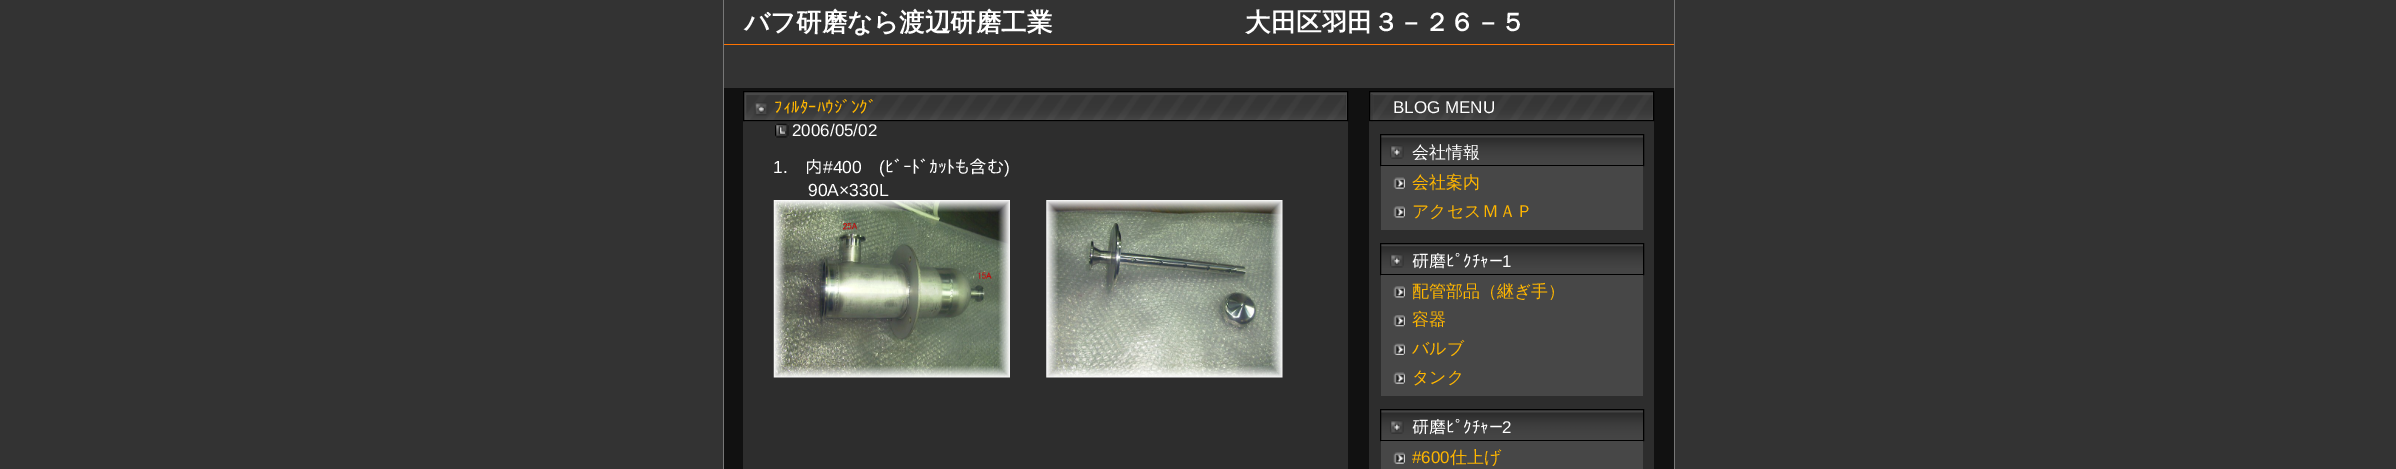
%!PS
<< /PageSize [2396 469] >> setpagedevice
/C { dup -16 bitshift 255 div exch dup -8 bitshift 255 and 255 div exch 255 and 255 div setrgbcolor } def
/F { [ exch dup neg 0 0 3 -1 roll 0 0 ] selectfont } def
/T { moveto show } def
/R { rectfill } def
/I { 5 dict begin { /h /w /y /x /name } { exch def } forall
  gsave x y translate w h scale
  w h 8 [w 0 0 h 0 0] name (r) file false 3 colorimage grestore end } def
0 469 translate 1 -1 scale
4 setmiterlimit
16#333333 C
0 0 2396 469 R
16#111111 C
724 88 950 381 R
16#777777 C
1674 0 1 469 R
723 0 1 469 R
16#FF7300 C
724 44 950 1 R
/WenQuanYiZenHei-Bold 25.5 F
16#FFFFFF C
(バフ研磨なら渡辺研磨工業) 744 31 T
(大田区羽田３－２６－５) 1245 31 T
16#2D2D2D C
743 121 605 348 R
16#484848 C
744 92 603 28 R
(1.rgb) 745 95 602 27 I
16#000000 C
743.5 91.5 604 29 rectstroke
/IPAPGothic-Regular 17 F
16#FFB600 C
(ﾌｨﾙﾀｰﾊｳｼﾞﾝｸﾞ) 774 113 T
(2.rgb) 775 123 14 15 I
/LiberationSans-Regular 17 F
16#FFFFFF C
(2006/05/02) 792 136 T
/LiberationSans-Regular 17.5 F
(1.) 773 173 T
/IPAPGothic-Regular 17.5 F
(内) 805 173 T
/LiberationSans-Regular 17.5 F
(#400) 823 173 T
(\() 879 173 T
/IPAPGothic-Regular 17.5 F
(ﾋﾞｰﾄﾞｶｯﾄも含む) 885 173 T
/LiberationSans-Regular 17.5 F
(\)) 1004 173 T
(90A×330L) 808 196 T
(3.rgb) 773 200 237 178 I
(4.rgb) 1046 200 237 178 I
16#2D2D2D C
1369 121 285 348 R
16#484848 C
1370 92 283 2 R
(5.rgb) 1369 94 285 28 I
16#000000 C
1369.5 91.5 284 29 rectstroke
/LiberationSans-Regular 17 F
16#FFFFFF C
(BLOG MENU) 1393 113 T
16#454545 C
1381 135 262 3 R
(6.rgb) 1380 137 264 30 I
16#000000 C
1380.5 134.5 263 31 rectstroke
/WenQuanYiZenHei-Medium 17 F
16#FFFFFF C
(会社情報) 1412 158 T
16#474747 C
1381 166 262 64 R
(7.rgb) 1393 177 12 12 I
16#FFB600 C
(会社案内) 1412 188 T
(8.rgb) 1393 206 12 12 I
(アクセスＭＡＰ) 1412 217 T
16#454545 C
1381 244 262 30 R
(9.rgb) 1381 246 262 22 I
16#000000 C
1380.5 243.5 263 31 rectstroke
/IPAPGothic-Regular 17 F
16#FFFFFF C
(研磨ﾋﾟｸﾁｬ－) 1412 267 T
/LiberationSans-Regular 17 F
(1) 1502 267 T
16#474747 C
1381 275 262 121 R
(8.rgb) 1393 286 12 12 I
/WenQuanYiZenHei-Medium 17 F
16#FFB600 C
(配管部品（継ぎ手）) 1412 297 T
(10.rgb) 1393 315 12 12 I
(容器) 1412 325 T
(11.rgb) 1393 343 12 12 I
(バルブ) 1412 354 T
(7.rgb) 1393 372 12 12 I
(タンク) 1412 383 T
16#454545 C
1381 410 262 3 R
(12.rgb) 1380 412 264 30 I
16#000000 C
1380.5 409.5 263 31 rectstroke
/IPAPGothic-Regular 17 F
16#FFFFFF C
(研磨ﾋﾟｸﾁｬ－) 1412 433 T
/LiberationSans-Regular 17 F
(2) 1502 433 T
16#474747 C
1381 441 262 28 R
(7.rgb) 1393 452 12 12 I
16#FFB600 C
(#600) 1412 463 T
/WenQuanYiZenHei-Medium 17 F
(仕上げ) 1450 463 T
showpage
